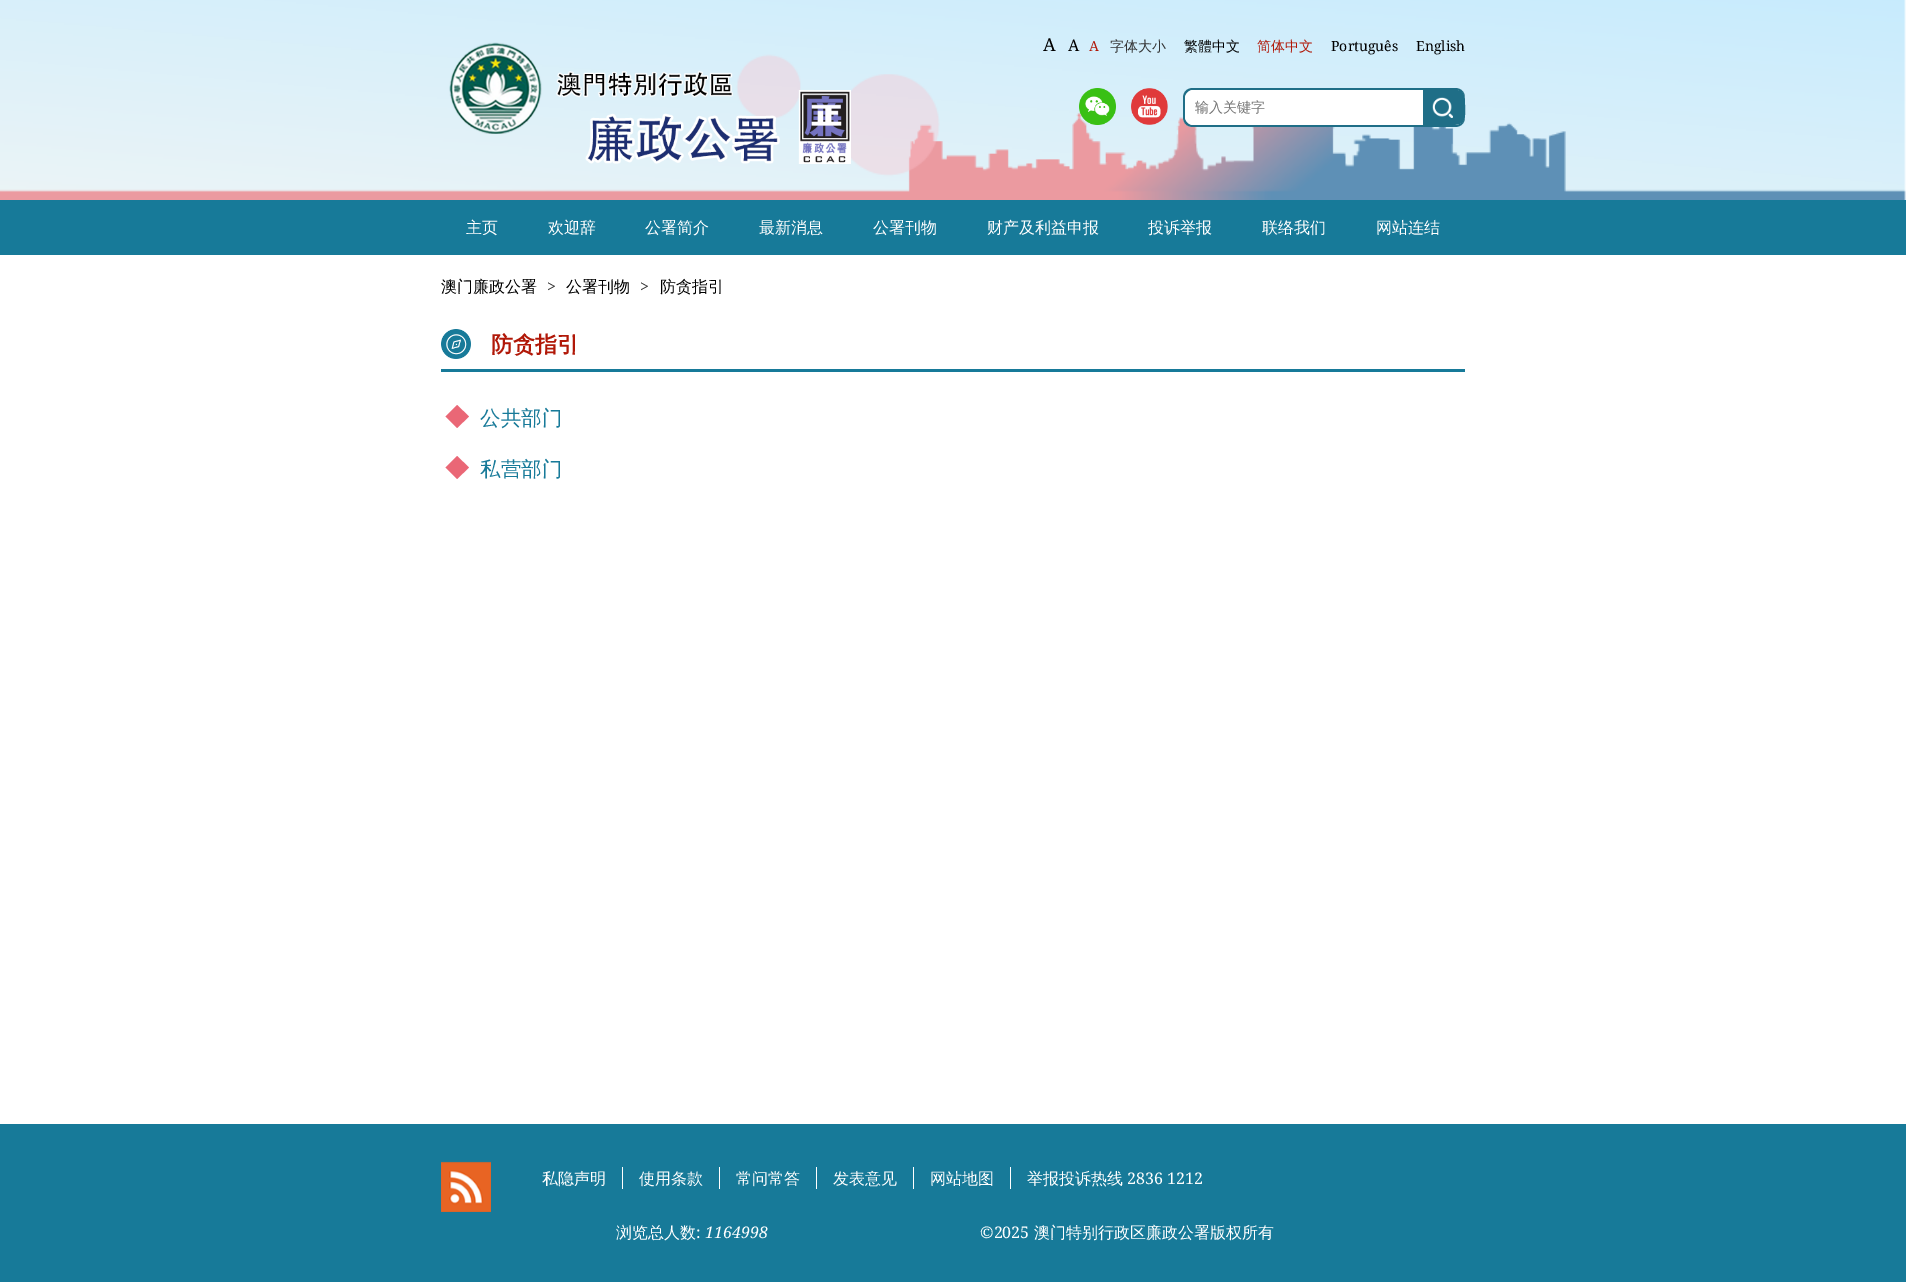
%!PS
<< /PageSize [1906 1282] >> setpagedevice
/m/moveto load def
/l/rlineto load def
/c/rcurveto load def
/z/closepath load def
/f/fill load def
/C { dup -16 bitshift 255 div exch dup -8 bitshift 255 and 255 div exch 255 and 255 div setrgbcolor } def
/F { [ exch dup neg 0 0 3 -1 roll 0 0 ] selectfont } def
/T { moveto show } def
/R { rectfill } def
/Q { 5 dict begin { /r /h /w /y /x } { exch def } forall
  x r add y moveto x w add y 2 copy h add r arct x w add y h add x 1 index r arct
  x y h add x y r arct x y 2 copy exch w add exch r arct closepath end } def
/I { 5 dict begin { /h /w /y /x /name } { exch def } forall
  gsave x y translate w h scale
  w h 8 [w 0 0 h 0 0] name (r) file false 3 colorimage grestore end } def
0 1282 translate 1 -1 scale
4 setmiterlimit
16#FFFFFF C
0 0 1906 1282 R
(1.rgb) 0 0 1906 200 I
(2.rgb) 449 42 402 122 I
/NotoSerif-Regular 18 F
16#000000 C
(A) 1043 51 T
/NotoSerif-Regular 16 F
(A) 1068 51 T
/NotoSerif-Regular 14 F
16#B11808 C
(A) 1089 51 T
/WenQuanYiZenHei-Medium 14 F
16#333333 C
(字体大小) 1110 51 T
16#000000 C
(繁體中文) 1184 51 T
16#B11808 C
(简体中文) 1257 51 T
/NotoSerif-Regular 14 F
16#000000 C
(Português) 1331 51 T
(English) 1416 51 T
(3.rgb) 1079 88 37 37 I
(4.rgb) 1131 88 37 37 I
16#FFFFFF C
1183 88 282 39 10 Q f
16#1F6E87 C
1193 88 m 262 0 l 6 0 10 4 10 10 c 0 19 l 0 6 -4 10 -10 10 c -262 0 l -6 0 -10 -4 -10 -10 c 0 -19 l 0 -6 4 -10 10 -10 c z 1193 90 m 262 0 l 6 0 10 4 10 8 c 0 19 l 0 4 -4 8 -10 8 c -262 0 l -4 0 -8 -4 -8 -8 c 0 -19 l 0 -4 4 -8 8 -8 c z eofill
16#FFFFFF C
1193 90 m -4 0 -8 4 -8 8 c 0 19 l 0 4 4 8 8 8 c 230 0 l 0 -35 l z f
/WenQuanYiZenHei-Medium 14 F
16#757575 C
(输入关键字) 1195 112 T
16#1F6E87 C
1423 90 m 0 35 l 27 0 l 17 0 15 -5 15 -21 c 0 -7 0 -14 -10 -14 c z f
(5.rgb) 1432 97 21 21 I
16#177A99 C
0 200 1906 55 R
/WenQuanYiZenHei-Medium 16 F
16#FFFFFF C
(主页) 466 233 T
(欢迎辞) 548 233 T
(公署简介) 645 233 T
(最新消息) 759 233 T
(公署刊物) 873 233 T
(财产及利益申报) 987 233 T
(投诉举报) 1148 233 T
(联络我们) 1262 233 T
(网站连结) 1376 233 T
16#000000 C
(澳门廉政公署) 441 292 T
/NotoSerif-Regular 16 F
16#333333 C
(>) 547 292 T
/WenQuanYiZenHei-Medium 16 F
16#000000 C
(公署刊物) 566 292 T
/NotoSerif-Regular 16 F
16#333333 C
(>) 640 292 T
/WenQuanYiZenHei-Medium 16 F
16#000000 C
(防贪指引) 660 292 T
16#177A99 C
441 369 1024 3 R
(6.rgb) 441 329 30 30 I
/WenQuanYiZenHei-Bold 22 F
16#B11808 C
(防贪指引) 491 352 T
16#EA6776 C
457 405 m 12 11.5 l -12 11.5 l -11.5 -11.5 l z f
/WenQuanYiZenHei-Medium 20.5 F
16#177A99 C
(公共部门) 480 425 T
16#EA6776 C
457 456 m 12 11.5 l -12 11.5 l -11.5 -11.5 l z f
16#177A99 C
(私营部门) 480 476 T
0 1124 1906 158 R
(7.rgb) 441 1161 50 51 I
/WenQuanYiZenHei-Medium 16 F
16#FFFFFF C
(私隐声明) 542 1184 T
622 1167 1 22 R
(使用条款) 639 1184 T
719 1167 1 22 R
(常问常答) 736 1184 T
816 1167 1 22 R
(发表意见) 833 1184 T
913 1167 1 22 R
(网站地图) 930 1184 T
1010 1167 1 22 R
(举报投诉热线) 1027 1184 T
/NotoSerif-Regular 16 F
(2836 1212) 1127 1184 T
/WenQuanYiZenHei-Medium 16 F
(浏览总人数) 616 1238 T
/NotoSerif-Regular 16 F
(:) 696 1238 T
/NotoSerif-Italic 16 F
(1164998) 705 1238 T
/NotoSerif-Regular 16 F
(©2025) 980 1238 T
/WenQuanYiZenHei-Medium 16 F
(澳门特别行政区廉政公署版权所有) 1034 1238 T
showpage
